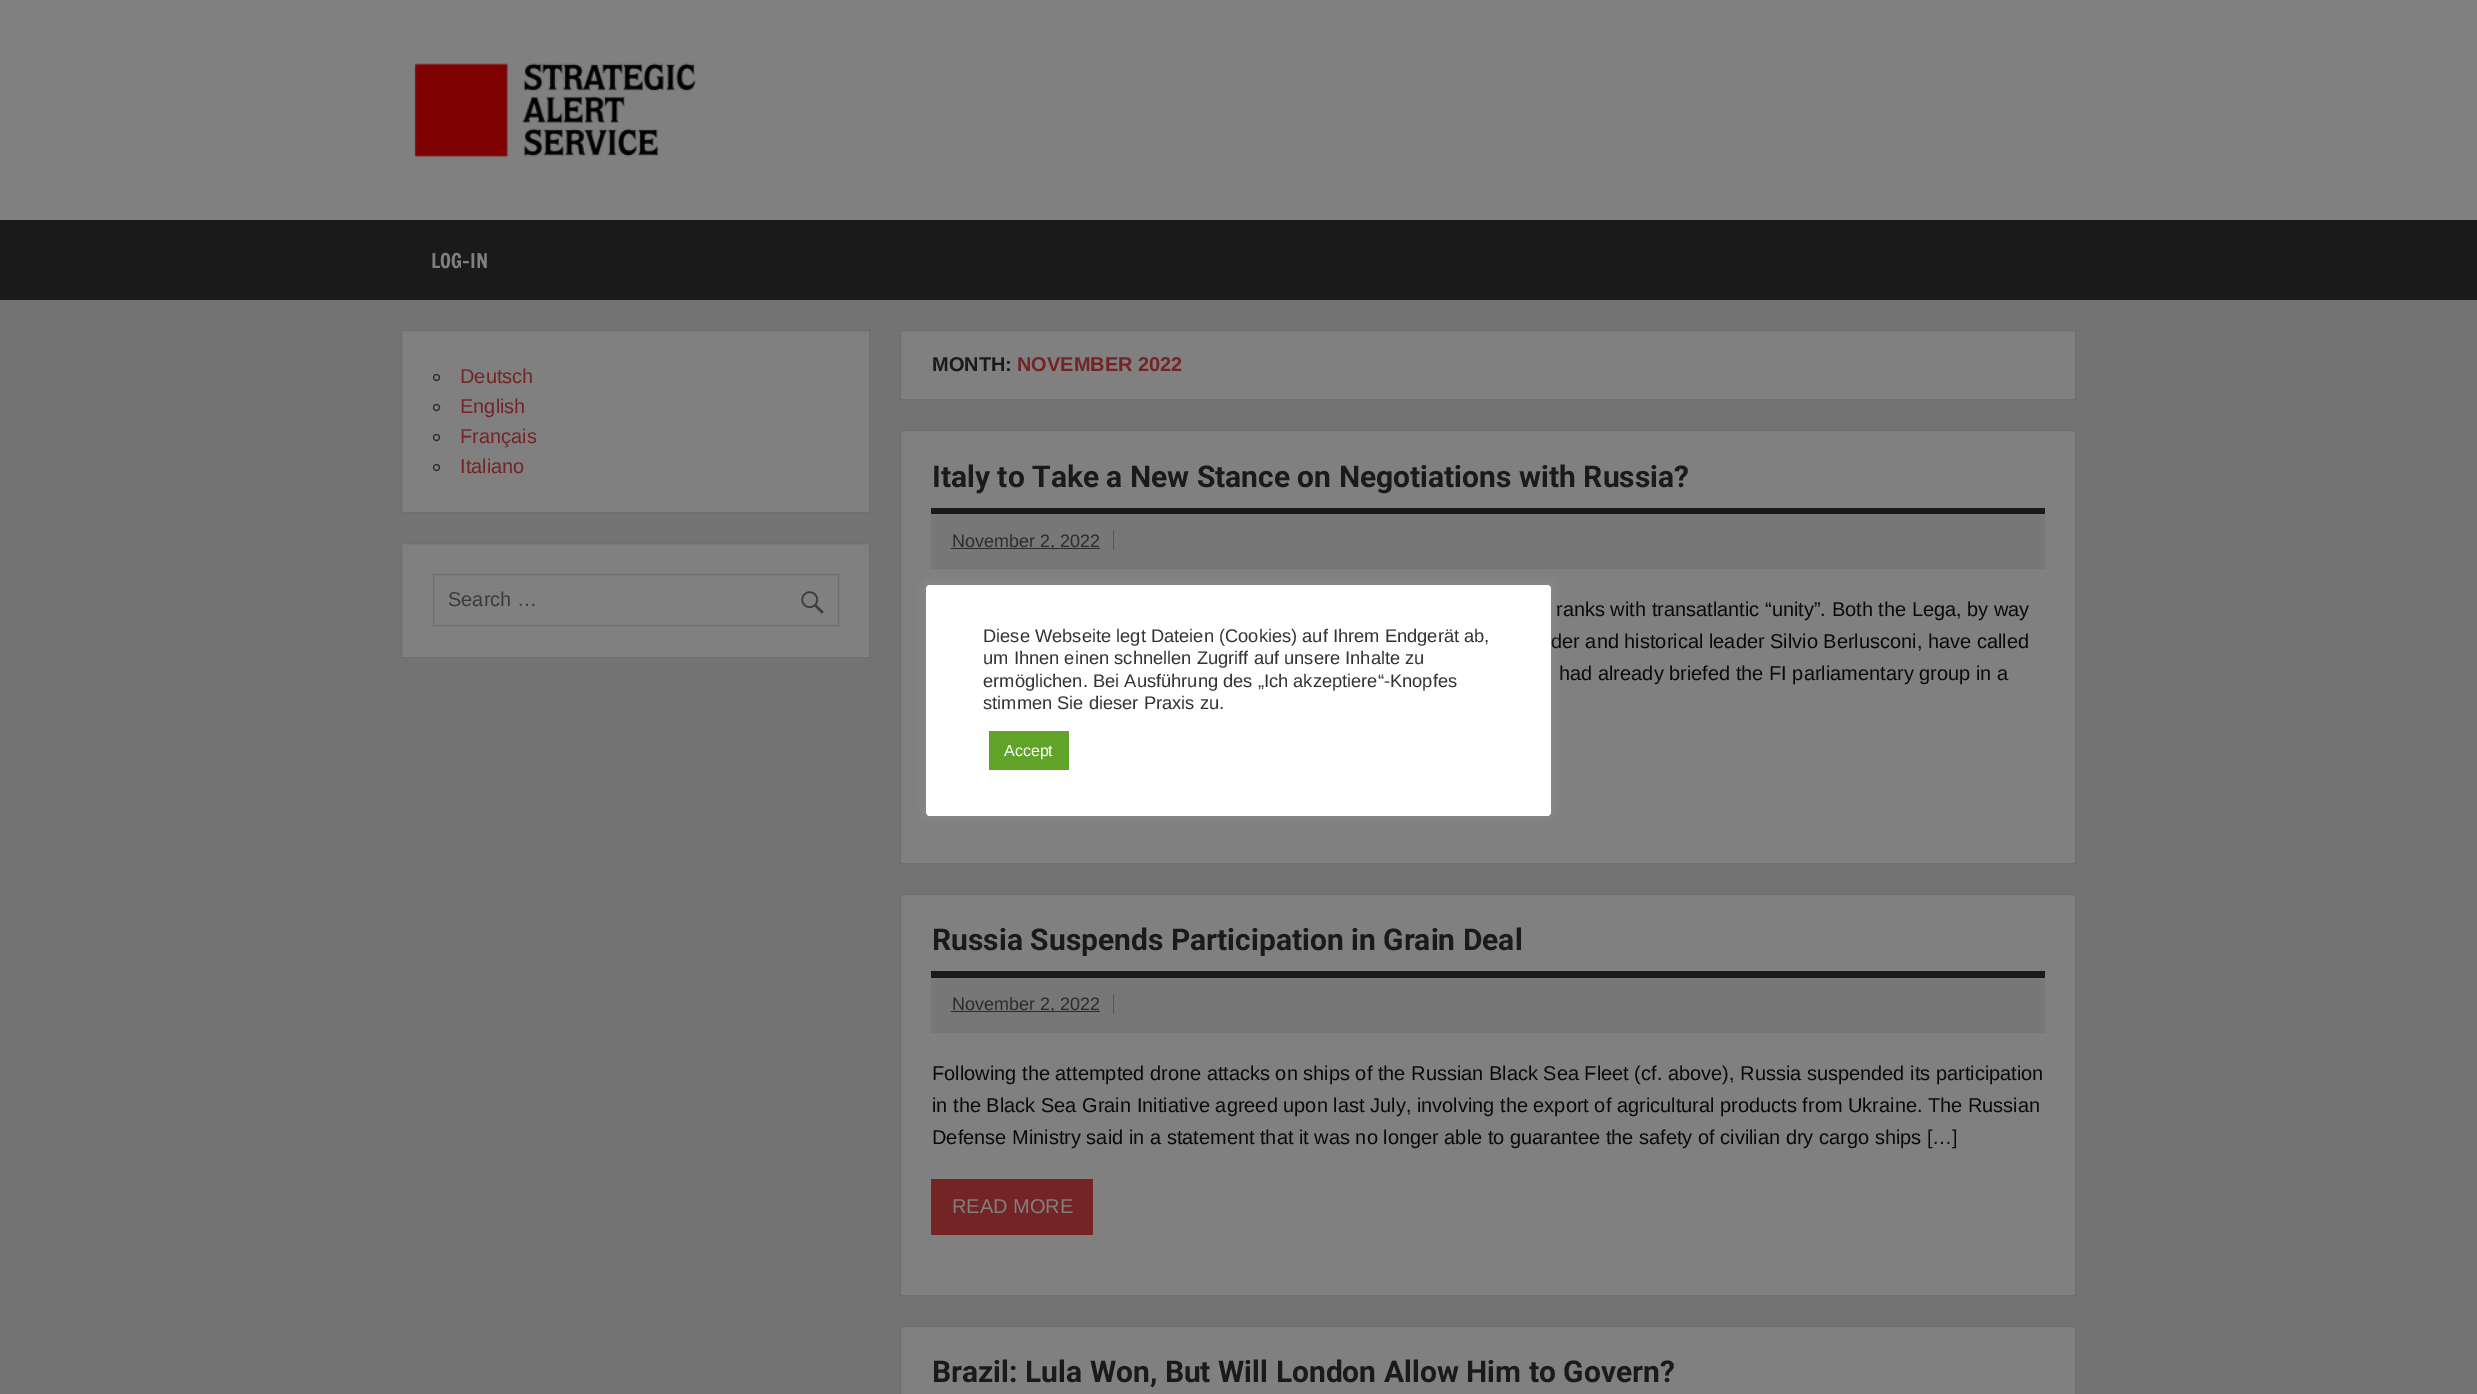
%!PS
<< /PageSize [2477 1394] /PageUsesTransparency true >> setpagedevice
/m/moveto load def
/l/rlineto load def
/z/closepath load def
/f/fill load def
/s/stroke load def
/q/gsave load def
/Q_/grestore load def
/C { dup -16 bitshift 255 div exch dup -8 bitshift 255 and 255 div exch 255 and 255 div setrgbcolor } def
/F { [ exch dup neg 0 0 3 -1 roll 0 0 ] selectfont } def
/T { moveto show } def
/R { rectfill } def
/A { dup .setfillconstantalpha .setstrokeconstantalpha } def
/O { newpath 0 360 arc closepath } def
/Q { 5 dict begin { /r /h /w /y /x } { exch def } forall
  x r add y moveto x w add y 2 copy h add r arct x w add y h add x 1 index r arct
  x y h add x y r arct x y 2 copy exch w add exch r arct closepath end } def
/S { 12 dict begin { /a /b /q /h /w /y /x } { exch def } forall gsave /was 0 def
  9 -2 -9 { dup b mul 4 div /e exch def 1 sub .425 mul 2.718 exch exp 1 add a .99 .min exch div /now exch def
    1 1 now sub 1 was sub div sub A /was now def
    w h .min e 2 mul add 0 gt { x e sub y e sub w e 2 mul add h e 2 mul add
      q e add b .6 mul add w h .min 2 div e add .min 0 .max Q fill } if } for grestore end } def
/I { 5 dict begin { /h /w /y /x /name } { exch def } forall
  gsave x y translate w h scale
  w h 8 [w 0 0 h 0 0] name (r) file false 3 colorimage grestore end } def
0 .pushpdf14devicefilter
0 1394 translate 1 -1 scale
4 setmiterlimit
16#737373 C
0 0 2477 1394 R
16#808080 C
0 0 2477 220 R
(1.rgb) 414 63 282 95 I
16#1A1A1A C
0 220 2477 80 R
/FrancoisOne-Regular 20 F
16#808080 C
(LOG-IN) 431 268 T
401.5 330.5 m 468 0 l 0 182 l -468 0 l z q f Q_
16#6F6F6F C
s
16#2B2B2B C
436.5 377.5 3 O s
/LiberationSans-Regular 20 F
16#742424 C
(Deutsch) 460 383 T
16#2B2B2B C
436.5 407.5 3 O s
16#742424 C
(English) 460 413 T
16#2B2B2B C
436.5 437.5 3 O s
16#742424 C
(Français) 460 443 T
16#2B2B2B C
436.5 467.5 3 O s
16#742424 C
(Italiano) 460 473 T
16#808080 C
401.5 543.5 m 468 0 l 0 114 l -468 0 l z q f Q_
16#6F6F6F C
s
433.5 574.5 405 51 rectstroke
16#3B3B3B C
(Search …) 448 606 T
(2.rgb) 801 591 23 23 I
16#808080 C
900.5 330.5 m 1175 0 l 0 69 l -1175 0 l z q f Q_
16#6F6F6F C
s
/LiberationSans-Bold 20 F
16#1A1A1A C
(MONTH:) 932 371 T
16#742424 C
(NOVEMBER 2022) 1017 371 T
16#808080 C
900.5 430.5 m 1175 0 l 0 433 l -1175 0 l z q f Q_
16#6F6F6F C
s
16#1A1A1A C
931 508 1114 6 R
/Roboto-Bold 30 F
(Italy to Take a New Stance on Negotiations with Russia?) 932 487 T
16#777777 C
931 514 1114 55 R
16#2B2B2B C
951 548 149 1 R
/LiberationSans-Regular 18 F
(November 2, 2022) 952 547 T
16#555555 C
1113 530 1 20 R
/LiberationSans-Regular 20 F
16#090909 C
(ranks with transatlantic “unity”. Both the Lega, by way) 1556 616 T
(der and historical leader Silvio Berlusconi, have called) 1551 648 T
(had already briefed the FI parliamentary group in a) 1559 680 T
16#808080 C
900.5 894.5 m 1175 0 l 0 401 l -1175 0 l z q f Q_
16#6F6F6F C
s
16#1A1A1A C
931 971 1114 7 R
/Roboto-Bold 30 F
(Russia Suspends Participation in Grain Deal) 932 950 T
16#777777 C
931 978 1114 55 R
16#2B2B2B C
951 1011 149 1 R
/LiberationSans-Regular 18 F
(November 2, 2022) 952 1010 T
16#555555 C
1113 994 1 20 R
/LiberationSans-Regular 20 F
16#090909 C
(Following the attempted drone attacks on ships of the Russian Black Sea Fleet \(cf. above\), Russia suspended its participation) 932 1080 T
(in the Black Sea Grain Initiative agreed upon last July, involving the export of agricultural products from Ukraine. The Russian) 932 1112 T
(Defense Ministry said in a statement that it was no longer able to guarantee the safety of civilian dry cargo ships […]) 932 1144 T
16#742424 C
931 1179 162 56 R
16#808080 C
(READ MORE) 952 1213 T
900.5 1326.5 m 1175 0 l 0 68 l -1175 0 l z q f Q_
16#6F6F6F C
s
/Roboto-Bold 30 F
16#1A1A1A C
(Brazil: Lula Won, But Will London Allow Him to Govern?) 932 1382 T
16#ACABAB C
926 584 625 231 4 6 .3 S
16#FFFFFF C
926 585 625 231 4 Q f
/LiberationSans-Regular 18.3 F
16#333333 C
(Diese Webseite legt Dateien \(Cookies\) auf Ihrem Endgerät ab,) 983 642 T
(um Ihnen einen schnellen Zugriff auf unsere Inhalte zu) 983 664 T
(ermöglichen. Bei Ausführung des „Ich akzeptiere“-Knopfes) 983 687 T
(stimmen Sie dieser Praxis zu.) 983 709 T
16#61A229 C
989 731 80 39 R
/LiberationSans-Regular 16 F
16#FFFFFF C
(Accept) 1004 756 T
.poppdf14devicefilter showpage
